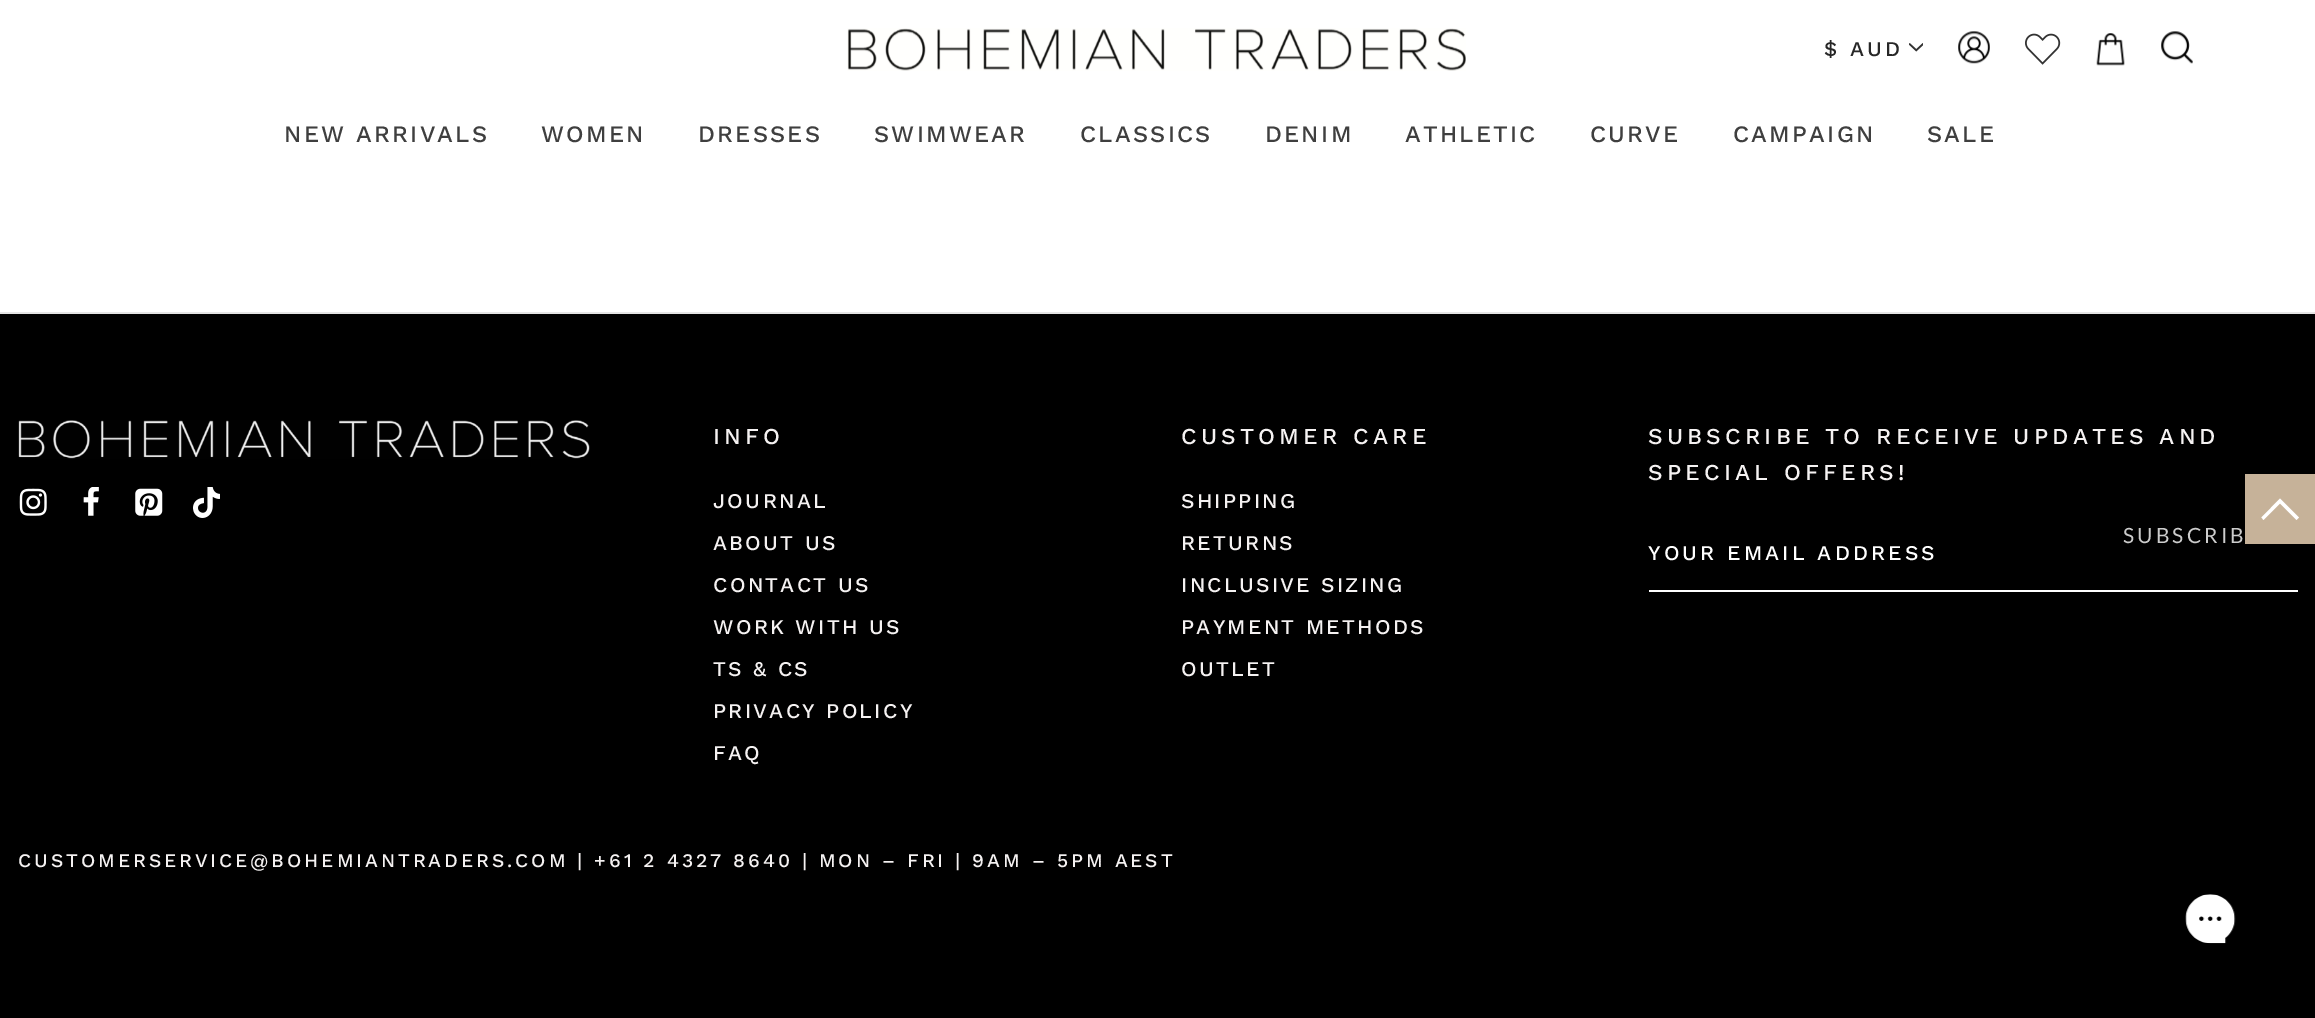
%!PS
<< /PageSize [2315 1018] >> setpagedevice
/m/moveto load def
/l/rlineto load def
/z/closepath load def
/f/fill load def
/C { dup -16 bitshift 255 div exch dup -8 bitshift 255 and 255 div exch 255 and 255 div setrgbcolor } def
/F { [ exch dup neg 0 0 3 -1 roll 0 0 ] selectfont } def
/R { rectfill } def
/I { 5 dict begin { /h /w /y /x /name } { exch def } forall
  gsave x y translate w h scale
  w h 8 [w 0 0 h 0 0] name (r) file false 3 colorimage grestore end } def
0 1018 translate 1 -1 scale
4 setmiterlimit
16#FFFFFF C
0 0 2315 1018 R
(1.rgb) 847 28 619 43 I
/WorkSans-Medium 21 F
16#272727 C
1824 56 m 3.1 0 ($ AUD) ashow
(2.rgb) 1909 43 14 9 I
(3.rgb) 1958 31 32 33 I
(4.rgb) 2025 33 36 32 I
(5.rgb) 2096 33 29 33 I
(6.rgb) 2161 31 32 33 I
/WorkSans-Medium 23.6 F
16#3F3F3F C
284 142 m 2.25 0 (NEW ARRIVALS) ashow
541 142 m 2.25 0 (WOMEN) ashow
698 142 m 2.25 0 (DRESSES) ashow
874 142 m 2.25 0 (SWIMWEAR) ashow
1080 142 m 2.25 0 (CLASSICS) ashow
1265 142 m 2.25 0 (DENIM) ashow
1405 142 m 2.25 0 (ATHLETIC) ashow
1590 142 m 2.25 0 (CURVE) ashow
1733 142 m 2.25 0 (CAMPAIGN) ashow
1927 142 m 2.25 0 (SALE) ashow
16#000000 C
0 314 2315 704 R
16#E5E5E5 C
0 312 2315 2 R
(7.rgb) 18 420 572 39 I
(8.rgb) 19 488 28 28 I
(9.rgb) 83 487 16 29 I
(10.rgb) 135 488 28 28 I
(11.rgb) 193 487 27 31 I
/WorkSans-Medium 22.75 F
16#F5F2F2 C
713 444 m 4.2 0 (INFO) ashow
/WorkSans-Medium 21 F
713 508 m 2.25 0 (JOURNAL) ashow
713 550 m 2.25 0 (ABOUT US) ashow
713 592 m 2.25 0 (CONTACT US) ashow
713 634 m 2.25 0 (WORK WITH US) ashow
713 676 m 2.25 0 (TS & CS) ashow
713 718 m 2.25 0 (PRIVACY POLICY) ashow
713 760 m 2.25 0 (FAQ) ashow
/WorkSans-Medium 22.75 F
1181 444 m 4.2 0 (CUSTOMER CARE) ashow
/WorkSans-Medium 21 F
1181 508 m 2.25 0 (SHIPPING) ashow
1181 550 m 2.25 0 (RETURNS) ashow
1181 592 m 2.25 0 (INCLUSIVE SIZING) ashow
1181 634 m 2.25 0 (PAYMENT METHODS) ashow
1181 676 m 2.25 0 (OUTLET) ashow
/WorkSans-Medium 22.75 F
1648 444 m 4.2 0 (SUBSCRIBE TO RECEIVE UPDATES AND) ashow
1648 480 m 4.2 0 (SPECIAL OFFERS!) ashow
/Lato-Regular 21 F
16#CCCCCC C
2123 543 m 3.1 0 (SUBSCRIB) ashow
16#FFFFFF C
1649 590 649 2 R
/WorkSans-Medium 21 F
1648 560 m 3.1 0 (YOUR EMAIL ADDRESS) ashow
/WorkSans-Medium 19.25 F
16#F5F2F2 C
18 867 m 2.9 0 (CUSTOMERSERVICE@BOHEMIANTRADERS.COM | +61 2 4327 8640 | MON – FRI | 9AM – 5PM AEST) ashow
16#C6B299 C
2245 474 70 70 R
16#FFFFFF C
2263.5 520 m -2 -2.5 l 18.5 -19 l 19 19 l -2.5 2.5 l -16.5 -16.5 l z f
(12.rgb) 2185 894 51 50 I
showpage
